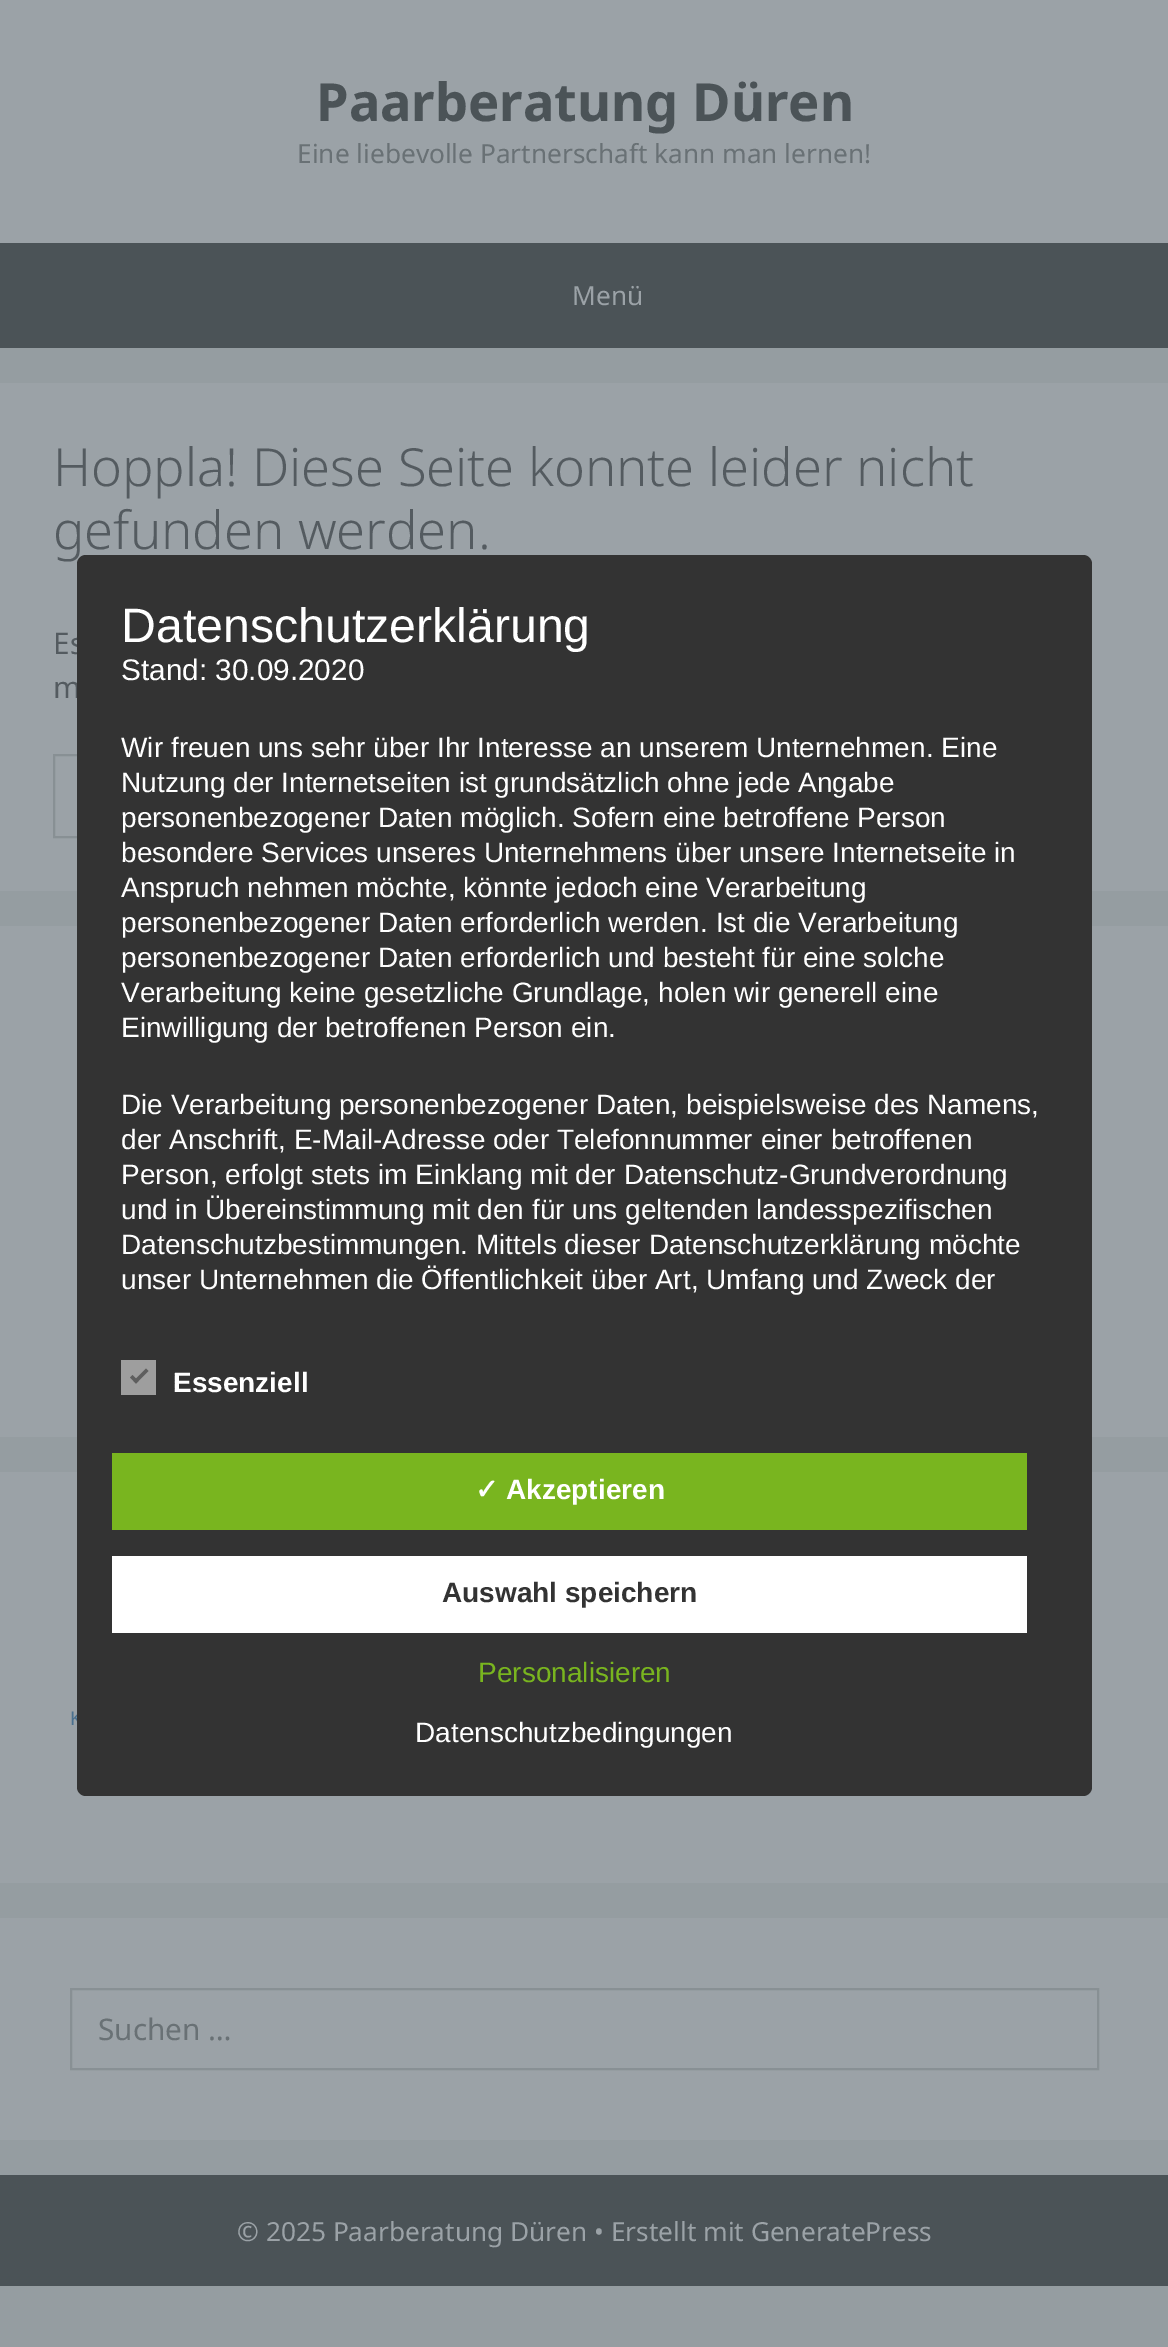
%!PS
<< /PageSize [1168 2347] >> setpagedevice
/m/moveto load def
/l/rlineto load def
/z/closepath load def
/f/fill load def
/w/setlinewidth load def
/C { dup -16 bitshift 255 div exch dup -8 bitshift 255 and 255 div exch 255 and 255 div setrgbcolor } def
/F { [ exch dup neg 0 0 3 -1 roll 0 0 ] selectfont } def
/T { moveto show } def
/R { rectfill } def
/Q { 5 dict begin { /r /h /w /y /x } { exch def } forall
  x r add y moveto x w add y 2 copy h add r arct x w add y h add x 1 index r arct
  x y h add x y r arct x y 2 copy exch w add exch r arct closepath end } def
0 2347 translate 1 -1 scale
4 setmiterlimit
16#959DA1 C
0 0 1168 2347 R
16#9BA2A7 C
0 0 1168 243 R
/NotoSans-Bold 52.5 F
16#4B5357 C
(Paarberatung Düren) 316 121 T
/NotoSans-Regular 26.25 F
16#697175 C
(Eine liebevolle Partnerschaft kann man lernen!) 297 163 T
16#4B5357 C
0 243 1168 105 R
16#9BA2A7 C
(Menü) 572 305 T
0 383 1168 508 R
/NotoSans-Light 52.5 F
16#545B60 C
(Hoppla! Diese Seite konnte leider nicht) 53 486 T
(gefunden werden.) 53 549 T
/NotoSans-Regular 29.75 F
(Es) 53 654 T
(m) 53 698 T
16#889094 C
2 w
54 755 488 82 rectstroke
16#9BA2A7 C
0 926 1168 511 R
0 1472 1168 411 R
/NotoSans-Regular 19 F
16#4A708F C
(K) 70 1725 T
16#9BA2A7 C
0 1918 1168 222 R
16#889094 C
71 1989 1027 80 rectstroke
/NotoSans-Regular 29.75 F
16#697175 C
(Suchen …) 98 2040 T
16#333333 C
77 555 1015 1241 9 Q f
/LiberationSans-Regular 48.25 F
16#FFFFFF C
(Datenschutzerklärung) 121 642 T
/LiberationSans-Regular 29.75 F
(Stand: 30.09.2020) 121 680 T
/LiberationSans-Regular 28 F
(Wir freuen uns sehr über Ihr Interesse an unserem Unternehmen. Eine) 121 757 T
(Nutzung der Internetseiten ist grundsätzlich ohne jede Angabe) 121 792 T
(personenbezogener Daten möglich. Sofern eine betroffene Person) 121 827 T
(besondere Services unseres Unternehmens über unsere Internetseite in) 121 862 T
(Anspruch nehmen möchte, könnte jedoch eine Verarbeitung) 121 897 T
(personenbezogener Daten erforderlich werden. Ist die Verarbeitung) 121 932 T
(personenbezogener Daten erforderlich und besteht für eine solche) 121 967 T
(Verarbeitung keine gesetzliche Grundlage, holen wir generell eine) 121 1002 T
(Einwilligung der betroffenen Person ein.) 121 1037 T
(Die Verarbeitung personenbezogener Daten, beispielsweise des Namens,) 121 1114 T
(der Anschrift, E-Mail-Adresse oder Telefonnummer einer betroffenen) 121 1149 T
(Person, erfolgt stets im Einklang mit der Datenschutz-Grundverordnung) 121 1184 T
(und in Übereinstimmung mit den für uns geltenden landesspezifischen) 121 1219 T
(Datenschutzbestimmungen. Mittels dieser Datenschutzerklärung möchte) 121 1254 T
(unser Unternehmen die Öffentlichkeit über Art, Umfang und Zweck der) 121 1289 T
16#9E9E9E C
121 1360 35 35 R
16#5E5E5E C
146 1368.5 m 2.5 2.5 l -12.5 12.5 l -2.5 -2.5 l z f
132.5 1375 m 6 6 l -2.5 2.5 l -6 -6 l z f
/LiberationSans-Bold 28 F
16#FFFFFF C
(Essenziell) 173 1392 T
16#79B51F C
112 1453 915 77 R
/DejaVuSans-Bold 28 F
16#FFFFFF C
(✓) 475 1499 T
/LiberationSans-Bold 28 F
(Akzeptieren) 506 1499 T
112 1556 915 77 R
16#333333 C
(Auswahl speichern) 442 1602 T
/LiberationSans-Regular 28 F
16#79B51F C
(Personalisieren) 478 1682 T
16#FFFFFF C
(Datenschutzbedingungen) 415 1742 T
16#4B5357 C
0 2175 1168 111 R
/NotoSans-Regular 26.25 F
16#9BA2A7 C
(© 2025 Paarberatung Düren • Erstellt mit GeneratePress) 237 2241 T
showpage
